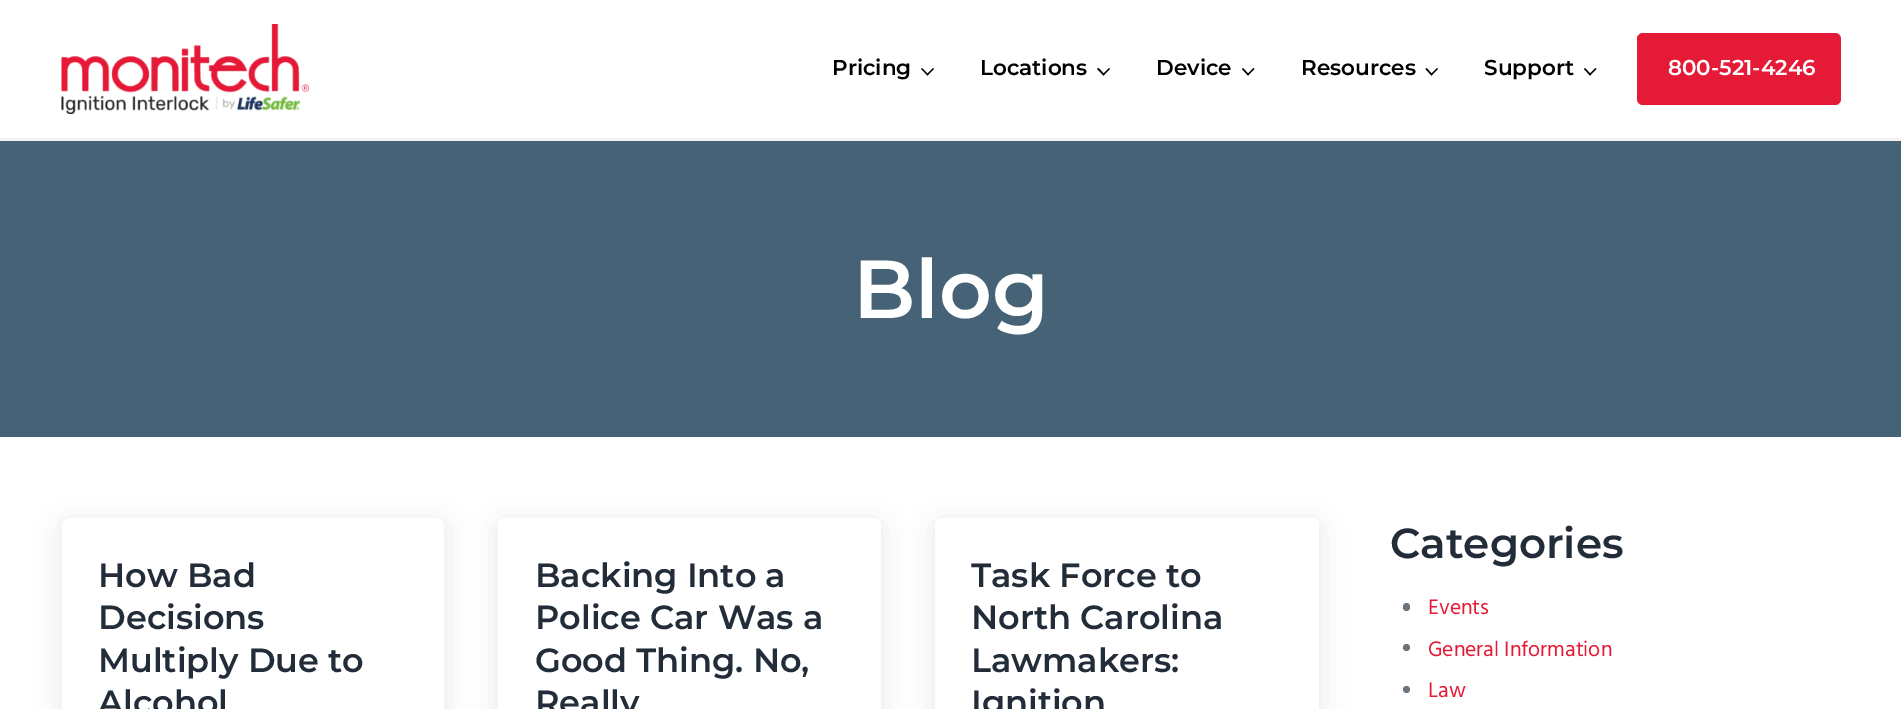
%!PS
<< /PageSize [1901 709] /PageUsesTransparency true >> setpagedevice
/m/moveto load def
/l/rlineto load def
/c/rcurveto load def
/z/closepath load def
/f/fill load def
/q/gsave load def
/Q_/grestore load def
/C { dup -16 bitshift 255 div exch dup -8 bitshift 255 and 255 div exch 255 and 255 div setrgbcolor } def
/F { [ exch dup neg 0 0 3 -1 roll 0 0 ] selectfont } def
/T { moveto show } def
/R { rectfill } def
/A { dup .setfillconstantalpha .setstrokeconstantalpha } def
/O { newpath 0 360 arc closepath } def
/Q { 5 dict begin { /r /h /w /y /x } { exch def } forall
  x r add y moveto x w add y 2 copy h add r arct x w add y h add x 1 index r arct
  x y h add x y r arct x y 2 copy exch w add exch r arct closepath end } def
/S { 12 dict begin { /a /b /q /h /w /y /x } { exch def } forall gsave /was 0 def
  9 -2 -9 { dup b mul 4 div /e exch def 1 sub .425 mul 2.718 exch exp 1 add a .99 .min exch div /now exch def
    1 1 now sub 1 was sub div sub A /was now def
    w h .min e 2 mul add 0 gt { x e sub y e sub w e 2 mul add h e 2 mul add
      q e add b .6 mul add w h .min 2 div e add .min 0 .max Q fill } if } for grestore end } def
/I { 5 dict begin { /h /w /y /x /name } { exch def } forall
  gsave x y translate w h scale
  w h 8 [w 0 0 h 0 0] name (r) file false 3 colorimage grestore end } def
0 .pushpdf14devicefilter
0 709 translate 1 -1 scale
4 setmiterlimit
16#FFFFFF C
0 0 1901 709 R
16#F3F3F4 C
0 138 1901 3 R
(1.rgb) 61 24 248 90 I
/Montserrat-Thin 21.5 F
16#000000 C
(Pricing) 832 75 T
933 68 m 1 1 l -6.5 6.5 l -1 -1 l z f
922 68 m 6.5 6.5 l -1 1 l -6.5 -6.5 l z f
(Locations) 980 75 T
1109 68 m 1 1 l -6.5 6.5 l -1 -1 l z f
1098.5 68 m 6 6.5 l -1 1 l -6.5 -6.5 l z f
(Device) 1156 75 T
1253.5 68 m 1 1 l -6.5 6.5 l -1 -1 l z f
1243 68 m 6 6.5 l -1 1 l -6 -6.5 l z f
(Resources) 1301 75 T
1437 68 m 1 1 l -6.5 6.5 l -1 -1 l z f
1426.5 68 m 6 6.5 l -1 1 l -6 -6.5 l z f
(Support) 1484 75 T
1595.5 68 m 1 1 l -6.5 6.5 l -1 -1 l z f
1585 68 m 6 6.5 l -1 1 l -6 -6.5 l z f
16#E51A36 C
1637 33 204 72 6 Q f
16#FFFFFF C
(800-521-4246) 1668 75 T
16#466277 C
0 141 1901 296 R
/Montserrat-Thin 82 F
16#FFFFFF C
(Blog) 853 318 T
q
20 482 m 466 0 l 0 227 l -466 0 l z 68 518 m 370 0 l 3.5 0 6 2.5 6 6 c 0 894 l 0 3.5 -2.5 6 -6 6 c -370 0 l -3.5 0 -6 -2.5 -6 -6 c 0 -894 l 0 -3.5 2.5 -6 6 -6 c z eoclip newpath
16#0A141E C
62 524 382 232 6 13.5 .1 S
Q_
/Montserrat-Thin 33.5 F
16#232C39 C
(How Bad) 98 587 T
(Decisions) 98 629 T
(Multiply Due to) 98 672 T
(Alcohol) 98 714 T
16#0A141E C
498 524 383 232 6 13.5 .1 S
16#FFFFFF C
498 518 383 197 6 Q f
16#232C39 C
(Backing Into a) 535 587 T
(Police Car Was a) 535 629 T
(Good Thing. No,) 535 672 T
(Really) 535 714 T
16#0A141E C
935 524 384 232 6 13.5 .1 S
16#FFFFFF C
935 518 384 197 6 Q f
16#232C39 C
(Task Force to) 971 587 T
(North Carolina) 971 629 T
(Lawmakers:) 971 672 T
(Ignition) 971 714 T
/Montserrat-Thin 42 F
(Categories) 1390 558 T
16#6C747D C
1403 603 7 8 3.5 Q f
/Hind-Regular 21.5 F
16#E51A36 C
(Events) 1428 614 T
16#6C747D C
1406.5 647.5 3.5 O f
16#E51A36 C
(General Information) 1428 656 T
16#6C747D C
1406.5 689.5 3.5 O f
16#E51A36 C
(Law) 1428 697 T
.poppdf14devicefilter showpage
